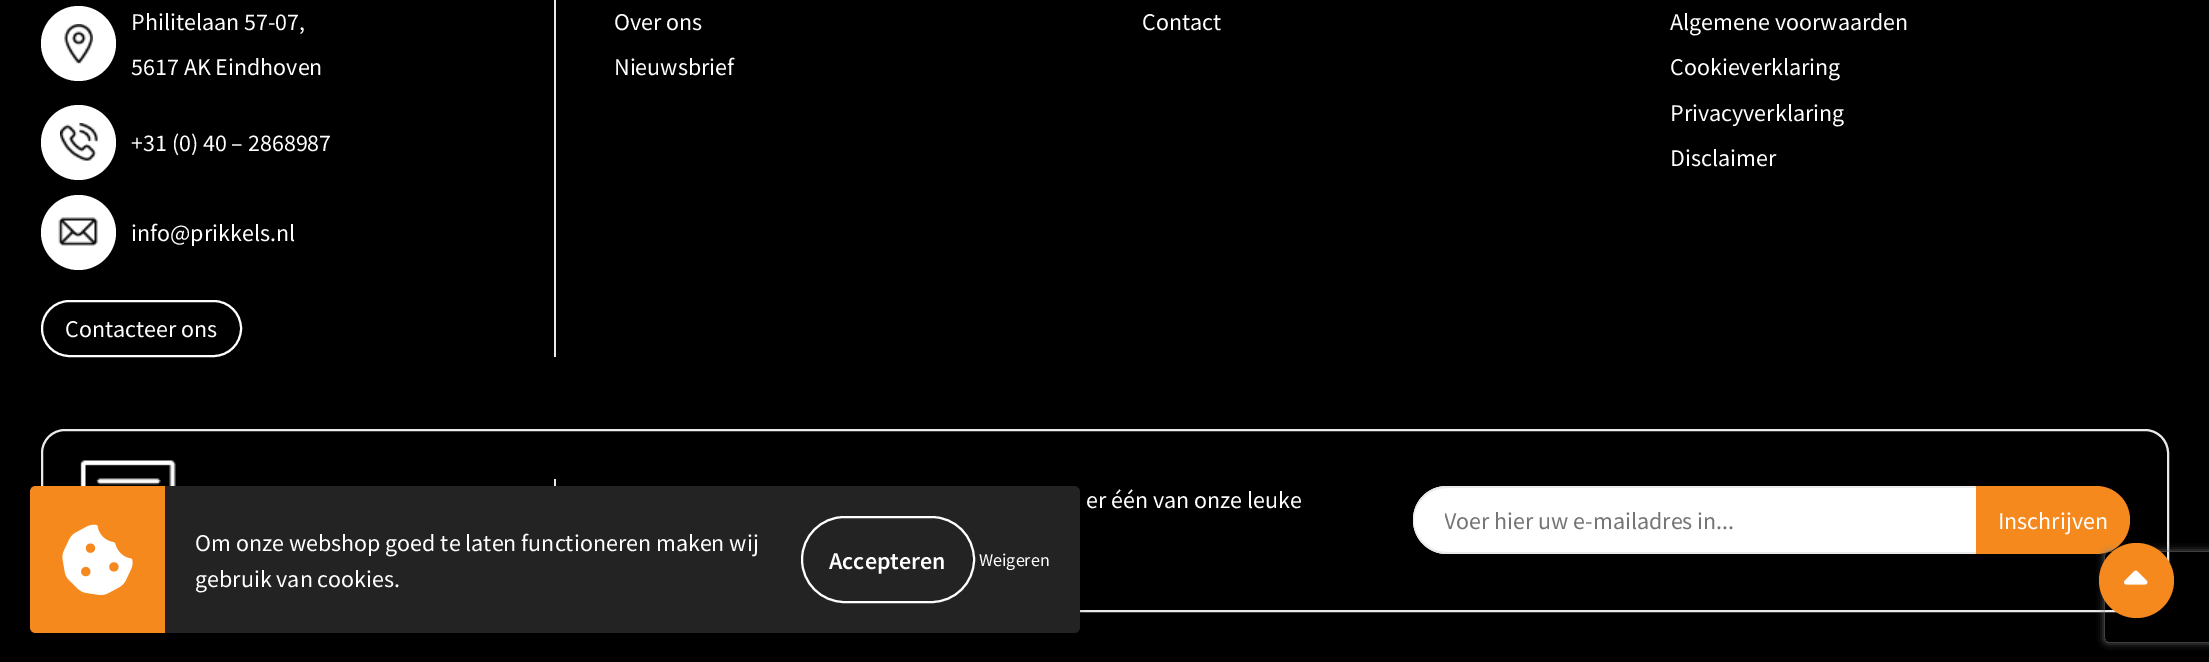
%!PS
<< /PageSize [2209 662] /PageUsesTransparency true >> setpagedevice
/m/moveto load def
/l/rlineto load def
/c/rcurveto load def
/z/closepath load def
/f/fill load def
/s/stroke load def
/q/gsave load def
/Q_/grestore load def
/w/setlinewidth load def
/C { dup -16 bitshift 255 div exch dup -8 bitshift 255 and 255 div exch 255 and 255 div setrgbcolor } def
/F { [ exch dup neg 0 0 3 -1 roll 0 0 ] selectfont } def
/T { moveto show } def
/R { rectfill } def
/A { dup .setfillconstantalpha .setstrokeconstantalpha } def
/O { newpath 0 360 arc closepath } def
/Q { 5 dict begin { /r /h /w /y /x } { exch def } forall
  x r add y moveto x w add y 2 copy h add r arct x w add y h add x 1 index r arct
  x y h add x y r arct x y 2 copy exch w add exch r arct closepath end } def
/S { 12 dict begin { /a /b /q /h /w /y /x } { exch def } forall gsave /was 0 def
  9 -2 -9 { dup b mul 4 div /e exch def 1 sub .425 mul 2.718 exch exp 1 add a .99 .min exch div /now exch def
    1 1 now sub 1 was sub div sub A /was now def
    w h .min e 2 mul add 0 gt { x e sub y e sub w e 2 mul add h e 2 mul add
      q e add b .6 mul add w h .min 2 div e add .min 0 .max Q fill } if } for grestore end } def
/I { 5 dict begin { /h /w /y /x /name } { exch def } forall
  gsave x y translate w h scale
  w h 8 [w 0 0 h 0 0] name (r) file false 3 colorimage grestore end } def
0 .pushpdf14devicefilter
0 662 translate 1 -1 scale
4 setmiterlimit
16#000000 C
0 0 2209 662 R
16#EAEAEA C
554 0 2 357 R
16#FFFFFF C
78.5 43.5 37.5 O f
(1.rgb) 64 24 29 40 I
/SourceSansPro-Regular 24 F
(Philitelaan 57-07,) 131 30 T
(5617 AK Eindhoven) 131 75 T
78.5 142.5 37.5 O f
(2.rgb) 60 123 38 38 I
(+31 \(0\) 40 – 2868987) 131 151 T
78.5 232.5 37.5 O f
(3.rgb) 58 217 40 29 I
(info@prikkels.nl) 131 241 T
2 w
42 301 199 55 27.5 Q s
(Contacteer ons) 65 337 T
(Over ons) 614 30 T
(Nieuwsbrief) 614 75 T
(Contact) 1142 30 T
(Algemene voorwaarden) 1670 30 T
(Cookieverklaring) 1670 75 T
(Privacyverklaring) 1670 121 T
(Disclaimer) 1670 166 T
16#EAEAEA C
42 430 2126 181 23 Q s
(4.rgb) 80 460 96 26 I
554 479 2 7 R
16#FFFFFF C
(er één van onze leuke) 1086 508 T
1447 486 m 529 0 l 0 68 l -529 0 l -19 0 -34 -15 -34 -34 c 0 -19 15 -34 34 -34 c z f
16#EAEAEA C
1447 486 m 529 0 l 0 68 l -529 0 l -19 0 -34 -16 -34 -34 c 0 -19 15 -34 34 -34 c z 1447 488 m 529 0 l 0 64 l -529 0 l -18 0 -33 -14 -33 -32 c 0 -18 15 -32 33 -32 c z eofill
q
1445 506 501 30 rectclip
16#757575 C
(Voer hier uw e-mailadres in...) 1444 529 T
Q_
16#F5891E C
1976 486 m 120 0 l 19 0 34 15 34 34 c 0 19 -15 34 -34 34 c -120 0 l z f
16#FFFFFF C
(Inschrijven) 1998 529 T
q
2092 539 m 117 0 l 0 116 l -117 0 l z 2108 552 m 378 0 l 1.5 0 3 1.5 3 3 c 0 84 l 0 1.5 -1.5 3 -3 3 c -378 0 l -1.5 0 -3 -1.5 -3 -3 c 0 -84 l 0 -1.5 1.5 -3 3 -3 c z eoclip newpath
16#808080 C
2105 552 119 90 3 4 1 S
Q_
16#F5891E C
2136.5 580.5 37.5 O f
(5.rgb) 2124 570 24 15 I
16#000000 C
45 501 1035 132 0 5 .15 S
16#232323 C
30 486 1050 147 6 Q f
16#F5891E C
36 486 m 129 0 l 0 147 l -129 0 l -3.5 0 -6 -2.5 -6 -6 c 0 -135 l 0 -3.5 2.5 -6 6 -6 c z f
(6.rgb) 62 524 71 72 I
16#FFFFFF C
(Om onze webshop goed te laten functioneren maken wij) 195 551 T
802 517 172 85 42.5 Q s
/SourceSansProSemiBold-SemiBold 24 F
(Accepteren) 829 569 T
/SourceSansPro-Regular 18 F
(Weigeren) 979 566 T
/SourceSansPro-Regular 24 F
(gebruik van cookies.) 195 587 T
.poppdf14devicefilter showpage
